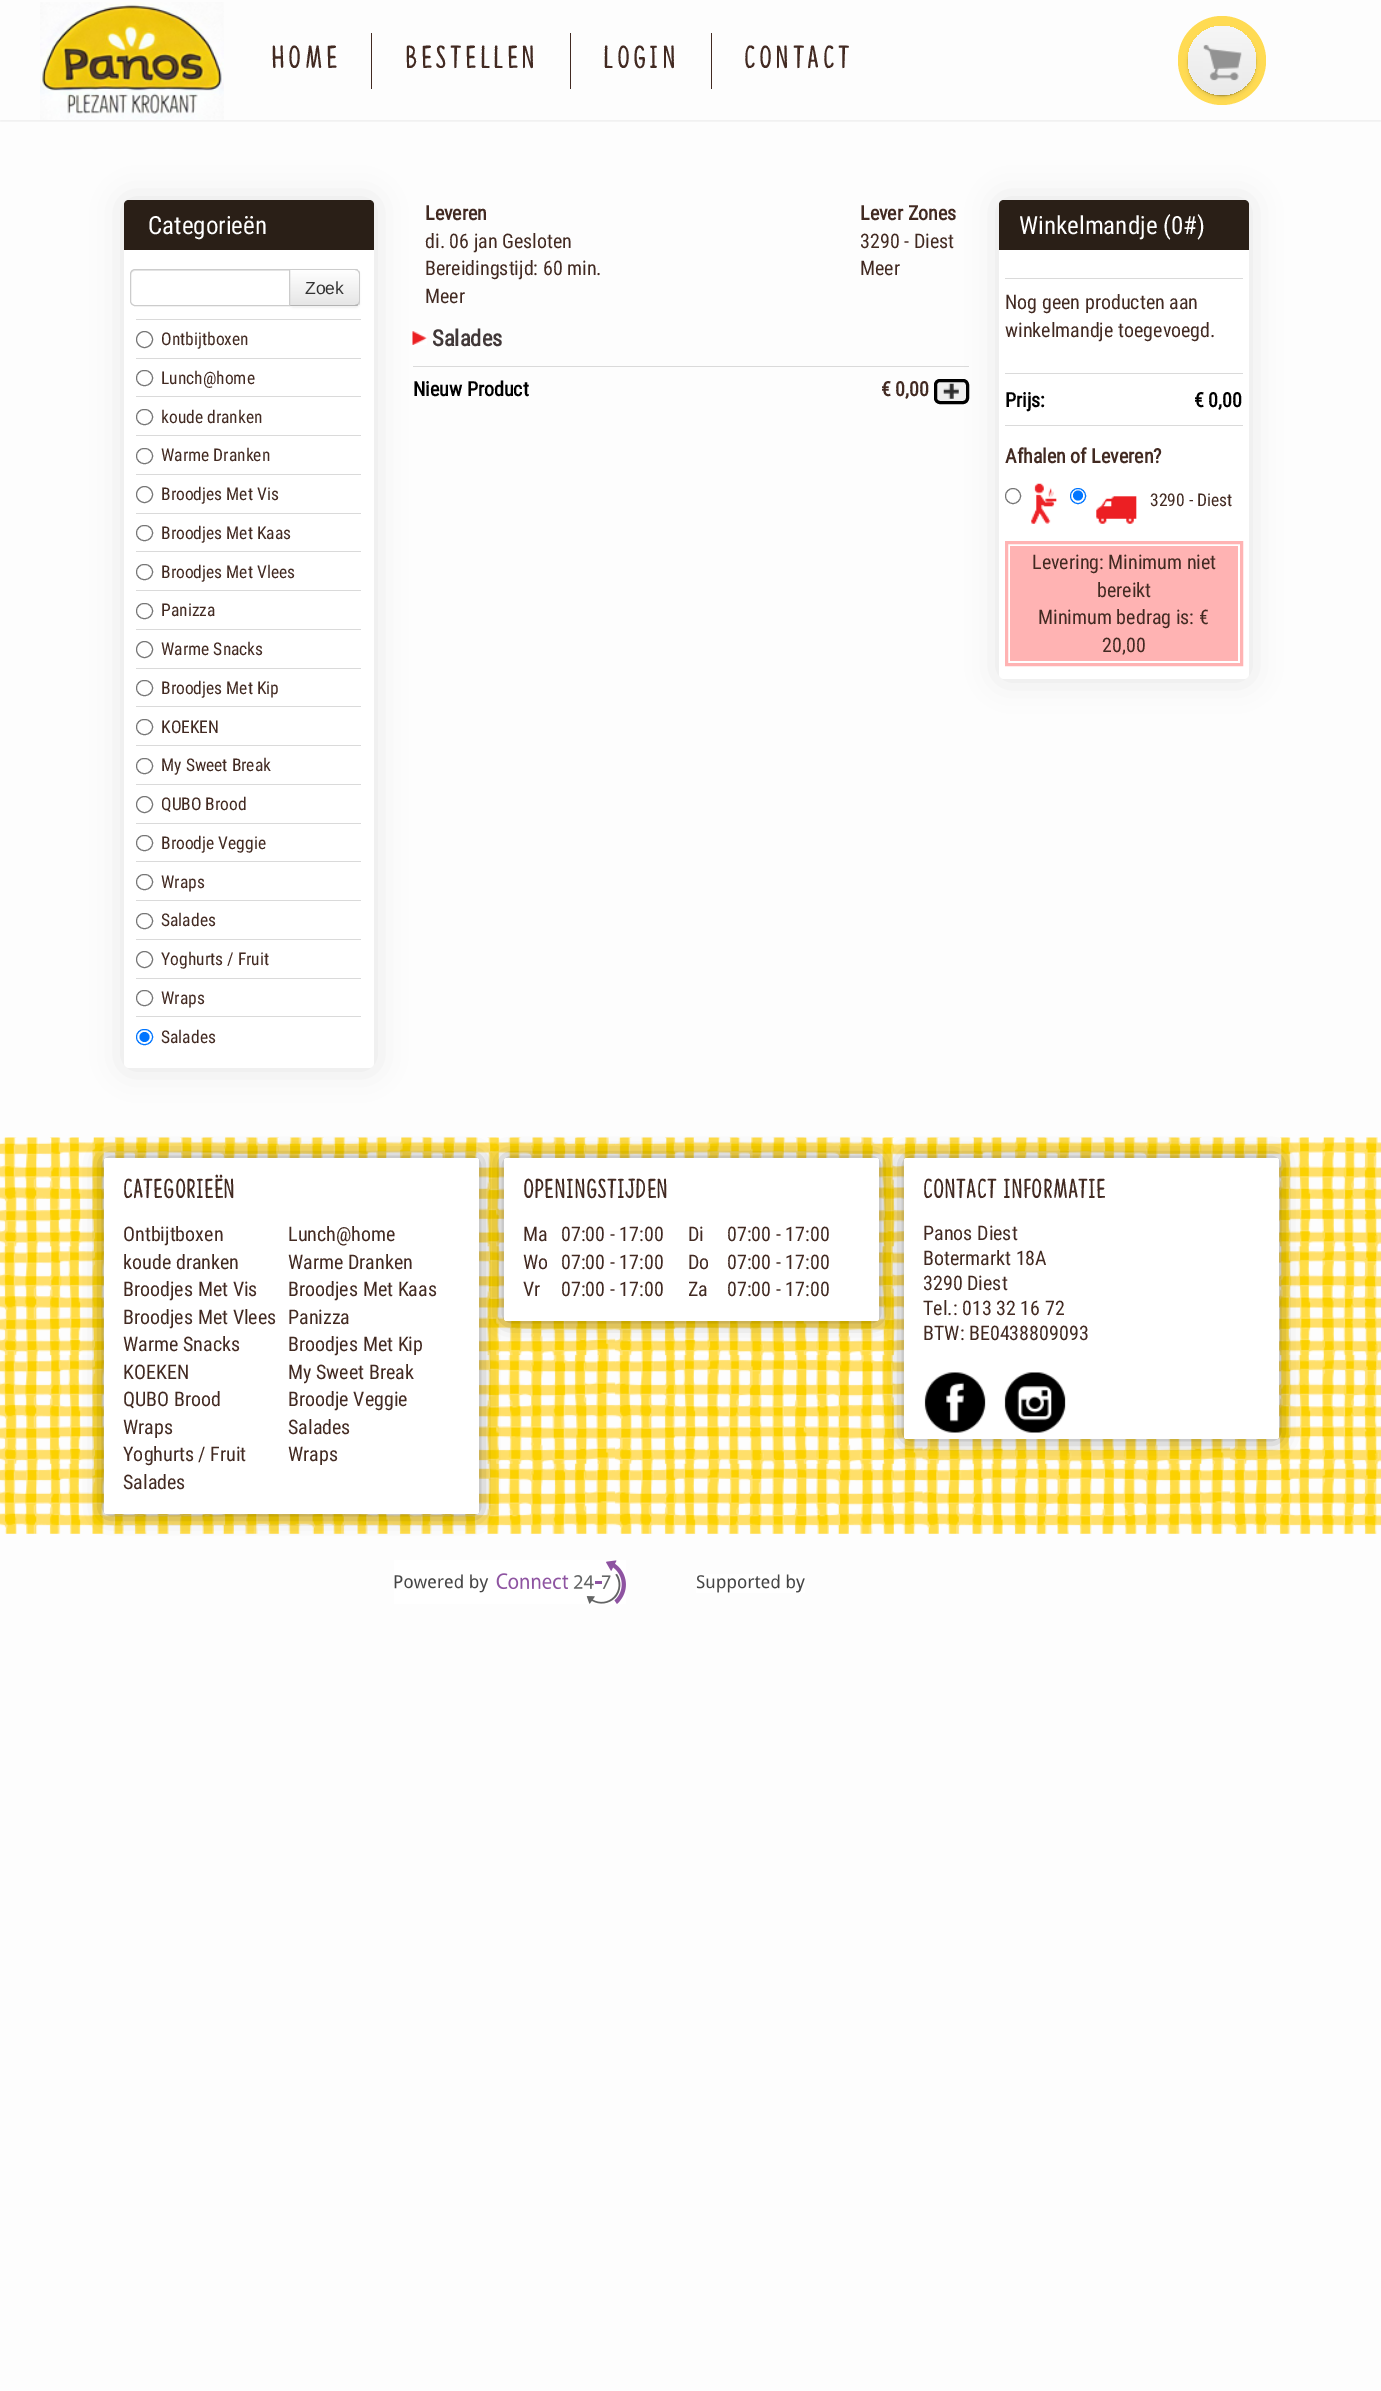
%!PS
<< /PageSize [1381 2391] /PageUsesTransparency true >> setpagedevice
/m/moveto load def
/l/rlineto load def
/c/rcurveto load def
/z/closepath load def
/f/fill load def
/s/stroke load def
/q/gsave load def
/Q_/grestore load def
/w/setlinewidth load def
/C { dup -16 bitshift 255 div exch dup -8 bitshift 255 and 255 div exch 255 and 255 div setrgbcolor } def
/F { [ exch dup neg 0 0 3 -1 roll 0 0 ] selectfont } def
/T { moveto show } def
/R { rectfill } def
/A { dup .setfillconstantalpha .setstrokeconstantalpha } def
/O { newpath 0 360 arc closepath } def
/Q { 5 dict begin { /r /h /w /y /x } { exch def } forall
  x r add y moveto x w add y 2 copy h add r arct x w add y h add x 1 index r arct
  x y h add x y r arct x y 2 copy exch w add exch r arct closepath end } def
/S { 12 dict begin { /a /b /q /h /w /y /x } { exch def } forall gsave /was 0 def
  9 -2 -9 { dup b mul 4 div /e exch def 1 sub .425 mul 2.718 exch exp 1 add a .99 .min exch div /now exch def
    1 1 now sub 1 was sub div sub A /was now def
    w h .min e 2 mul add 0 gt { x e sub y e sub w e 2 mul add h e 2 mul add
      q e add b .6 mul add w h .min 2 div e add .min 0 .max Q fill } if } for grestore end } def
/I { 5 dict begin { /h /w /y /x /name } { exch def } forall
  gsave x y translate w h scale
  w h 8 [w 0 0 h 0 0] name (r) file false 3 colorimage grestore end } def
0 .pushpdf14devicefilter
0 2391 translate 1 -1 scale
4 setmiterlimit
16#FDFDFD C
0 0 1381 2391 R
q
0 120 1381 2 rectclip
16#000000 C
0 1 1381 120 0 2.5 .07 S
Q_
(1.rgb) 40 2 184 118 I
16#422A22 C
371 33 1 56 R
/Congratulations-Regular 32 F
271 68 m 3.25 0 (HOME) ashow
570 33 1 56 R
405 68 m 3.25 0 (BESTELLEN) ashow
711 33 1 56 R
603 68 m 3.25 0 (LOGIN) ashow
744 68 m 3.25 0 (CONTACT) ashow
16#FFDB53 C
1178 16 88 89 44 Q f
16#000000 C
1188 29 68 69 34 2 .1 S
1188 28 68 68 34 .5 .25 S
q 1188 26 68 69 34 Q clip newpath
<< /ShadingType 2 /ColorSpace /DeviceRGB /Coords [1222 26 1222 95] /Extend [true true] /Function << /FunctionType 2 /Domain [0 1] /C0 [.965 .965 .965] /C1 [.918 .918 .918] /N 1 >> >> shfill Q_
(2.rgb) 1203 44 39 37 I
124 200 250 868 5 15.5 .1 S
16#FFFFFF C
124 200 250 868 5 Q f
16#2A1F17 C
129 200 m 240 0 l 3 0 5 2 5 5 c 0 45 l -250 0 l 0 -45 l 0 -3 2 -5 5 -5 c z f
/RobotoCondensed-Regular 25 F
16#FFFFFF C
(Categorieën) 148 234 T
16#000000 C
289 270 71 38 5 1 .05 S
q
289 269 m 66 0 l 3 0 5 2 5 5 c 0 27 l 0 3 -2 5 -5 5 c -66 0 l z clip newpath
q 290 270 m 70 0 l 0 35 l -70 0 l z clip newpath
<< /ShadingType 2 /ColorSpace /DeviceRGB /Coords [324 270 324 305] /Extend [true true] /Function << /FunctionType 2 /Domain [0 1] /C0 [1 1 1] /C1 [.902 .902 .902] /N 1 >> >> shfill Q_
Q_
16#CCCCCC C
289 269 m 1 1 l 65 0 l 3 1 l 0 -1 l 0 -1 -2 -1 -3 -1 c z f
358.5 270.5 m 1 .5 1.5 2 1.5 3.5 c 0 27 l 0 1.5 -.5 3 -1.5 3.5 c -1 -.5 l 1 -1 1.5 -2 1.5 -3 c 0 -27 l 0 -1 -.5 -2 -1.5 -3 c z f
16#B3B3B3 C
358 305 m 0 1 -2 1 -3 1 c -66 0 l 1 -1 l 65 0 l 3 -1 l z f
16#FFFFFF C
135 269 m 155 0 l 0 37 l -155 0 l -3 0 -5 -2 -5 -5 c 0 -27 l 0 -3 2 -5 5 -5 c z f
16#ECECEC C
135 271 m 154 0 l 0 -1 l -154 0 l -3 0 -4 2 -4 5 c 0 -2 2 -4 4 -4 c z f
16#CCCCCC C
135 269.5 m 154.5 0 l 0 36 l -154.5 0 l -2.5 0 -4.5 -2 -4.5 -4.5 c 0 -27 l 0 -2.5 2 -4.5 4.5 -4.5 c z s
/LiberationSans-Regular 17.5 F
16#333333 C
(Zoek) 305 294 T
16#DADADA C
136 319 225 1 R
16#767676 C
144.5 339.5 8 O s
/RobotoCondensed-Regular 17.5 F
16#422A22 C
(Ontbijtboxen) 161 345 T
16#DADADA C
136 358 225 1 R
16#767676 C
136.5 370.5 16 15 7.5 Q s
16#422A22 C
(Lunch@home) 161 384 T
16#DADADA C
136 396 225 1 R
16#767676 C
136.5 409.5 16 15 7.5 Q s
16#422A22 C
(koude dranken) 161 423 T
16#DADADA C
136 435 225 1 R
16#767676 C
136.5 448.5 16 15 7.5 Q s
16#422A22 C
(Warme Dranken) 161 461 T
16#DADADA C
136 474 225 1 R
16#767676 C
144.5 494.5 8 O s
16#422A22 C
(Broodjes Met Vis) 161 500 T
16#DADADA C
136 513 225 1 R
16#767676 C
136.5 525.5 16 15 7.5 Q s
16#422A22 C
(Broodjes Met Kaas) 161 539 T
16#DADADA C
136 551 225 1 R
16#767676 C
136.5 564.5 16 15 7.5 Q s
16#422A22 C
(Broodjes Met Vlees) 161 578 T
16#DADADA C
136 590 225 1 R
16#767676 C
136.5 603.5 16 15 7.5 Q s
16#422A22 C
(Panizza) 161 616 T
16#DADADA C
136 629 225 1 R
16#767676 C
144.5 649.5 8 O s
16#422A22 C
(Warme Snacks) 161 655 T
16#DADADA C
136 668 225 1 R
16#767676 C
136.5 680.5 16 15 7.5 Q s
16#422A22 C
(Broodjes Met Kip) 161 694 T
16#DADADA C
136 706 225 1 R
16#767676 C
136.5 719.5 16 15 7.5 Q s
16#422A22 C
(KOEKEN) 161 733 T
16#DADADA C
136 745 225 1 R
16#767676 C
136.5 758.5 16 15 7.5 Q s
16#422A22 C
(My Sweet Break) 161 771 T
16#DADADA C
136 784 225 1 R
16#767676 C
144.5 804.5 8 O s
16#422A22 C
(QUBO Brood) 161 810 T
16#DADADA C
136 823 225 1 R
16#767676 C
136.5 835.5 16 15 7.5 Q s
16#422A22 C
(Broodje Veggie) 161 849 T
16#DADADA C
136 861 225 1 R
16#767676 C
136.5 874.5 16 15 7.5 Q s
16#422A22 C
(Wraps) 161 888 T
16#DADADA C
136 900 225 1 R
16#767676 C
136.5 913.5 16 15 7.5 Q s
16#422A22 C
(Salades) 161 926 T
16#DADADA C
136 939 225 1 R
16#767676 C
144.5 959.5 8 O s
16#422A22 C
(Yoghurts / Fruit) 161 965 T
16#DADADA C
136 978 225 1 R
16#767676 C
136.5 990.5 16 15 7.5 Q s
16#422A22 C
(Wraps) 161 1004 T
16#DADADA C
136 1016 225 1 R
16#0075FF C
136.5 1029.5 16 15 7.5 Q s
144.5 1037 5 O f
16#422A22 C
(Salades) 161 1043 T
/RobotoCondensed-Bold 20 F
(Leveren) 425 220 T
/RobotoCondensed-Regular 20 F
(di. 06 jan Gesloten) 425 248 T
(Bereidingstijd: 60 min.) 425 275 T
(Meer) 425 303 T
/RobotoCondensed-Bold 20 F
(Lever Zones) 860 220 T
/RobotoCondensed-Regular 20 F
(3290 - Diest) 860 248 T
(Meer) 860 275 T
(3.rgb) 412 331 15 14 I
/RobotoCondensed-Bold 22.5 F
16#413838 C
(Salades) 432 346 T
16#DADADA C
413 366 556 1 R
/RobotoCondensed-Bold 20 F
16#000000 C
(Nieuw Product) 413 396 T
16#422A22 C
(€ 0,00) 881 396 T
16#000000 C
999 200 250 479 5 15.5 .1 S
16#EFEFEF C
934 379 35 25 6 Q f
(4.rgb) 943 383 16 16 I
16#000000 C
3 w
935.5 380.5 32 22 4.5 Q s
16#FFFFFF C
999 200 250 479 5 Q f
16#2A1F17 C
1004 200 m 240 0 l 3 0 5 2 5 5 c 0 45 l -250 0 l 0 -45 l 0 -3 2 -5 5 -5 c z f
/RobotoCondensed-Regular 25 F
16#FFFFFF C
(Winkelmandje \(0#\)) 1019 234 T
16#DADADA C
1005 278 238 1 R
/RobotoCondensed-Regular 20 F
16#422A22 C
(Nog geen producten aan) 1005 309 T
(winkelmandje toegevoegd.) 1005 337 T
16#DADADA C
1005 373 238 1 R
/RobotoCondensed-Bold 20 F
16#000000 C
(Prijs:) 1005 407 T
(€ 0,00) 1194 407 T
16#DADADA C
1005 425 238 1 R
16#422A22 C
(Afhalen of Leveren?) 1005 463 T
16#767676 C
1 w
1013 496 7.5 O s
(5.rgb) 1031 483 26 41 I
16#0075FF C
1078 496 7.5 O s
1078 495.5 5 O f
(6.rgb) 1096 496 41 28 I
/RobotoCondensed-Regular 17.5 F
16#422A22 C
(3290 - Diest) 1150 506 T
16#FFB3B3 C
3 w
1006.5 542.5 235 122 rectstroke
1010 546 228 115 R
/RobotoCondensed-Regular 20 F
16#422A22 C
(Levering: Minimum niet) 1032 569 T
(bereikt) 1097 597 T
(Minimum bedrag is: €) 1038 624 T
(20,00) 1102 652 T
(7.rgb) 0 1137 1381 397 I
16#000000 C
104 1158 375 356 2.5 9.5 .4 S
16#FFFFFF C
104 1158 375 356 2.5 Q f
/Congratulations-Regular 27.5 F
16#422A22 C
(CATEGORIEËN) 123 1198 T
/RobotoCondensed-Regular 20 F
(Ontbijtboxen) 123 1241 T
(Lunch@home) 288 1241 T
(koude dranken) 123 1269 T
(Warme Dranken) 288 1269 T
(Broodjes Met Vis) 123 1296 T
(Broodjes Met Kaas) 288 1296 T
(Broodjes Met Vlees) 123 1324 T
(Panizza) 288 1324 T
(Warme Snacks) 123 1351 T
(Broodjes Met Kip) 288 1351 T
(KOEKEN) 123 1379 T
(My Sweet Break) 288 1379 T
(QUBO Brood) 123 1406 T
(Broodje Veggie) 288 1406 T
(Wraps) 123 1434 T
(Salades) 288 1434 T
(Yoghurts / Fruit) 123 1461 T
(Wraps) 288 1461 T
(Salades) 123 1489 T
16#000000 C
504 1158 375 163 2.5 9.5 .4 S
16#FFFFFF C
504 1158 375 163 2.5 Q f
/Congratulations-Regular 27.5 F
16#422A22 C
(OPENINGSTIJDEN) 523 1198 T
/RobotoCondensed-Regular 20 F
(Ma) 523 1241 T
(07:00 - 17:00) 561 1241 T
(Di) 688 1241 T
(07:00 - 17:00) 727 1241 T
(Wo) 523 1269 T
(07:00 - 17:00) 561 1269 T
(Do) 688 1269 T
(07:00 - 17:00) 727 1269 T
(Vr) 523 1296 T
(07:00 - 17:00) 561 1296 T
(Za) 688 1296 T
(07:00 - 17:00) 727 1296 T
16#000000 C
904 1158 375 281 2.5 9.5 .4 S
16#FFFFFF C
904 1158 375 281 2.5 Q f
/Congratulations-Regular 27.5 F
16#422A22 C
(CONTACT INFORMATIE) 923 1198 T
/RobotoCondensed-Regular 20 F
(Panos Diest) 923 1240 T
(Botermarkt 18A) 923 1265 T
(3290 Diest) 923 1290 T
(Tel.: 013 32 16 72) 923 1315 T
(BTW: BE0438809093) 923 1340 T
(8.rgb) 924 1372 62 61 I
(9.rgb) 1004 1372 62 61 I
(10.rgb) 394 1560 232 44 I
(11.rgb) 696 1574 109 19 I
.poppdf14devicefilter showpage
